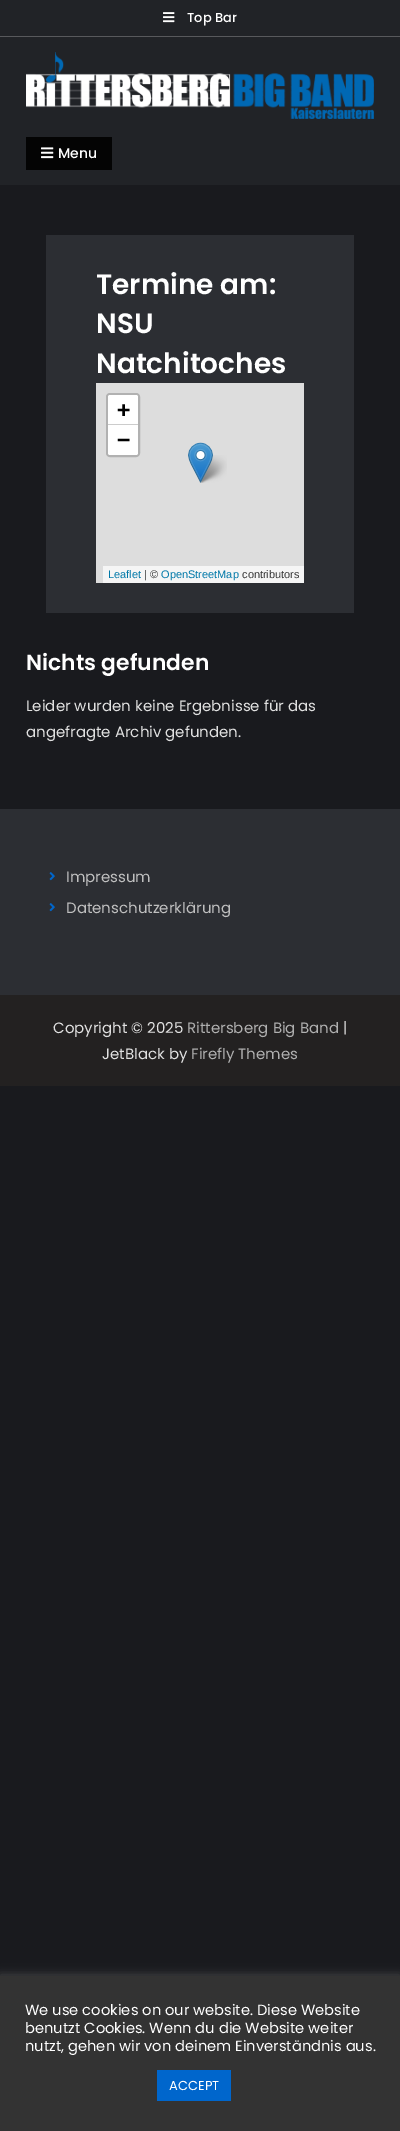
%!PS
<< /PageSize [400 2131] /PageUsesTransparency true >> setpagedevice
/m/moveto load def
/l/rlineto load def
/c/rcurveto load def
/z/closepath load def
/f/fill load def
/s/stroke load def
/w/setlinewidth load def
/C { dup -16 bitshift 255 div exch dup -8 bitshift 255 and 255 div exch 255 and 255 div setrgbcolor } def
/F { [ exch dup neg 0 0 3 -1 roll 0 0 ] selectfont } def
/T { moveto show } def
/R { rectfill } def
/A { dup .setfillconstantalpha .setstrokeconstantalpha } def
/Q { 5 dict begin { /r /h /w /y /x } { exch def } forall
  x r add y moveto x w add y 2 copy h add r arct x w add y h add x 1 index r arct
  x y h add x y r arct x y 2 copy exch w add exch r arct closepath end } def
/S { 12 dict begin { /a /b /q /h /w /y /x } { exch def } forall gsave /was 0 def
  9 -2 -9 { dup b mul 4 div /e exch def 1 sub .425 mul 2.718 exch exp 1 add a .99 .min exch div /now exch def
    1 1 now sub 1 was sub div sub A /was now def
    w h .min e 2 mul add 0 gt { x e sub y e sub w e 2 mul add h e 2 mul add
      q e add b .6 mul add w h .min 2 div e add .min 0 .max Q fill } if } for grestore end } def
/I { 5 dict begin { /h /w /y /x /name } { exch def } forall
  gsave x y translate w h scale
  w h 8 [w 0 0 h 0 0] name (r) file false 3 colorimage grestore end } def
0 .pushpdf14devicefilter
0 2131 translate 1 -1 scale
4 setmiterlimit
16#191A1E C
0 0 400 2131 R
16#212327 C
0 0 400 185 R
16#58595C C
0 36 400 1 R
(1.rgb) 163 12 12 11 I
/Poppins-Medium 13 F
16#FFFFFF C
(Top Bar) 187 22 T
(2.rgb) 26 52 348 67 I
16#040404 C
26 137 86 33 R
(3.rgb) 41 147 13 12 I
/Poppins-Medium 14 F
16#FFFFFF C
(Menu) 58 158 T
16#2C2E33 C
46 235 308 378 R
/Poppins-SemiBold 28 F
16#FFFFFF C
(Termine am:) 96 294 T
(NSU) 96 333 T
(Natchitoches) 96 373 T
16#DDDDDD C
96 383 208 200 R
16#B1B1B1 C
2 w
107 394 32 62 3 Q s
16#FFFFFF C
110 395 m 26 0 l 1 0 2 1 2 2 c 0 28 l -30 0 l 0 -28 l 0 -1 1 -2 2 -2 c z f
16#CCCCCC C
108 424 30 1 R
/DejaVuSansMono-Bold 22 F
16#000000 C
(+) 117 417 T
16#FFFFFF C
108 425 m 30 0 l 0 28 l 0 1 -1 2 -2 2 c -26 0 l -1 0 -2 -1 -2 -2 c z f
16#000000 C
(−) 117 447 T
16#F5F5F5 C
103 566 201 17 R
/LiberationSans-Regular 11 F
16#0078A8 C
(Leaflet) 108 578 T
16#333333 C
(| ©) 144 578 T
16#0078A8 C
(OpenStreetMap) 161 578 T
16#333333 C
(contributors) 242 578 T
(5.rgb) 198 455 29 28 I
(4.rgb) 188 442 25 41 I
/Poppins-SemiBold 21.9 F
16#FFFFFF C
(Nichts gefunden) 26 670 T
/Poppins-Regular 15 F
16#E0E0E0 C
(Leider wurden keine Ergebnisse für das) 26 711 T
(angefragte Archiv gefunden.) 26 737 T
16#2C2E33 C
0 809 400 186 R
(6.rgb) 49 872 6 9 I
16#BFBFBF C
(Impressum) 66 882 T
(6.rgb) 49 903 6 9 I
(Datenschutzerklärung) 66 913 T
16#232121 C
0 995 400 91 R
16#E0E0E0 C
(Copyright © 2025) 53 1033 T
16#AFAFAF C
(Rittersberg Big Band) 187 1033 T
16#E0E0E0 C
(|) 343 1033 T
(JetBlack by) 102 1059 T
16#AFAFAF C
(Firefly Themes) 191 1059 T
16#ACABAB C
0 1975 400 155 0 5 .3 S
16#333333 C
0 1976 400 155 R
/Poppins-Regular 14.7 F
16#FFFFFF C
(We use cookies on our website. Diese Website) 25 2015 T
(benutzt Cookies. Wenn du die Website weiter) 25 2033 T
(nutzt, gehen wir von deinem Einverständnis aus.) 25 2051 T
16#0066CC C
157 2070 74 31 R
/Poppins-Regular 13 F
16#FFFFFF C
(ACCEPT) 169 2090 T
.poppdf14devicefilter showpage
